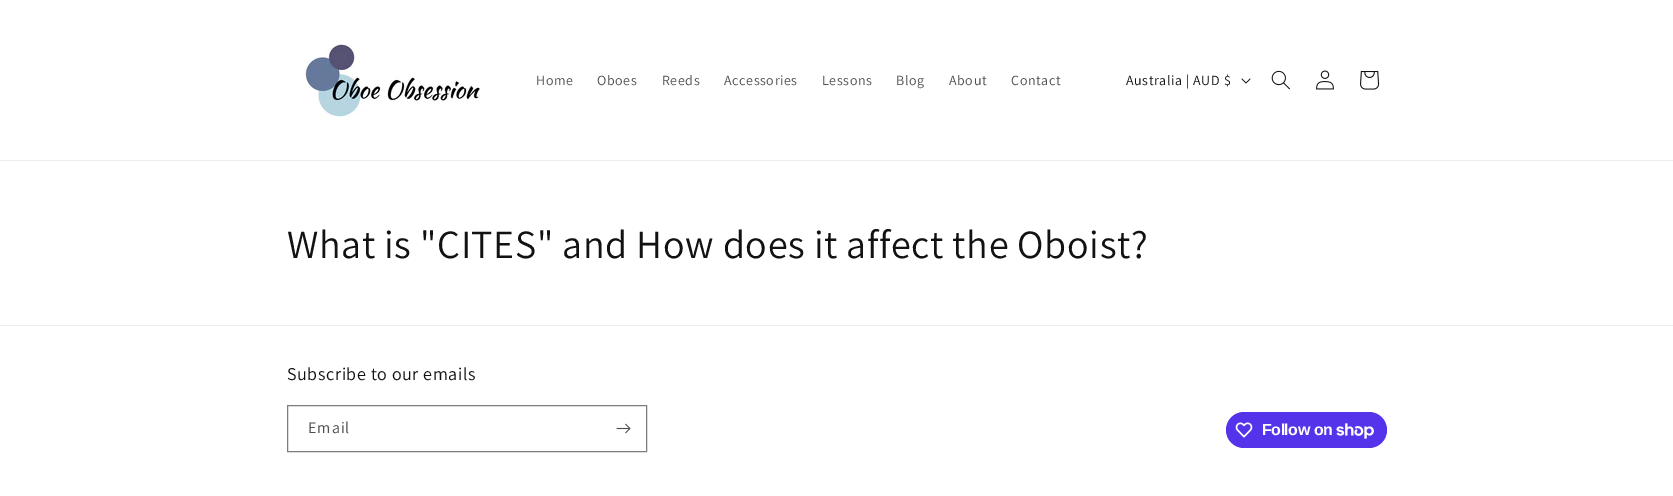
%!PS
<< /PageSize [1673 496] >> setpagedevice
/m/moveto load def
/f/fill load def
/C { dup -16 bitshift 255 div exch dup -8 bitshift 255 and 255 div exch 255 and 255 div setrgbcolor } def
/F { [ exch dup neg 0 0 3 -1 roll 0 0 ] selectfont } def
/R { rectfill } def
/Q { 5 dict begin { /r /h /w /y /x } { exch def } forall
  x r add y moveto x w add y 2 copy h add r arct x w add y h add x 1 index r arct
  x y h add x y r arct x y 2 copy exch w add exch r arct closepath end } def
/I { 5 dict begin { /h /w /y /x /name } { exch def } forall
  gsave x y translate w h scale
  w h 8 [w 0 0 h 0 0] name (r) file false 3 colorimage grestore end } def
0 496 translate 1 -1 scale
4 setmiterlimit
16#FFFFFF C
0 0 1673 496 R
16#ECECEC C
0 160 1673 1 R
(1.rgb) 303 44 177 73 I
/Assistant-Regular 14 F
16#4D4D4D C
536 85 m .6 0 (Home) ashow
597 85 m .6 0 (Oboes) ashow
662 85 m .6 0 (Reeds) ashow
724 85 m .6 0 (Accessories) ashow
822 85 m .6 0 (Lessons) ashow
896 85 m .6 0 (Blog) ashow
949 85 m .6 0 (About) ashow
1011 85 m .6 0 (Contact) ashow
16#121212 C
1126 85 m .6 0 (Australia | AUD $) ashow
(2.rgb) 1241 78 10 6 I
(3.rgb) 1271 70 19 20 I
(4.rgb) 1316 70 18 20 I
(5.rgb) 1360 71 20 19 I
/Assistant-Regular 40 F
287 258 m .6 0 (What is "CITES" and How does it affect the Oboist?) ashow
16#ECECEC C
0 325 1673 1 R
/Assistant-Regular 18 F
16#121212 C
287 380 m .6 0 (Subscribe to our emails) ashow
16#7D7D7D C
287.5 405.5 359 46 rectstroke
/Assistant-Regular 16 F
16#4D4D4D C
308 433 m 1 0 (Email) ashow
(6.rgb) 616 423 15 11 I
16#5433EB C
1226 412 161 36 18 Q f
(7.rgb) 1235 422 18 16 I
/LiberationSans-Bold 16 F
16#FFFFFF C
1262 435 m -.5 0 (Follow on) ashow
(8.rgb) 1336 423 38 16 I
showpage
